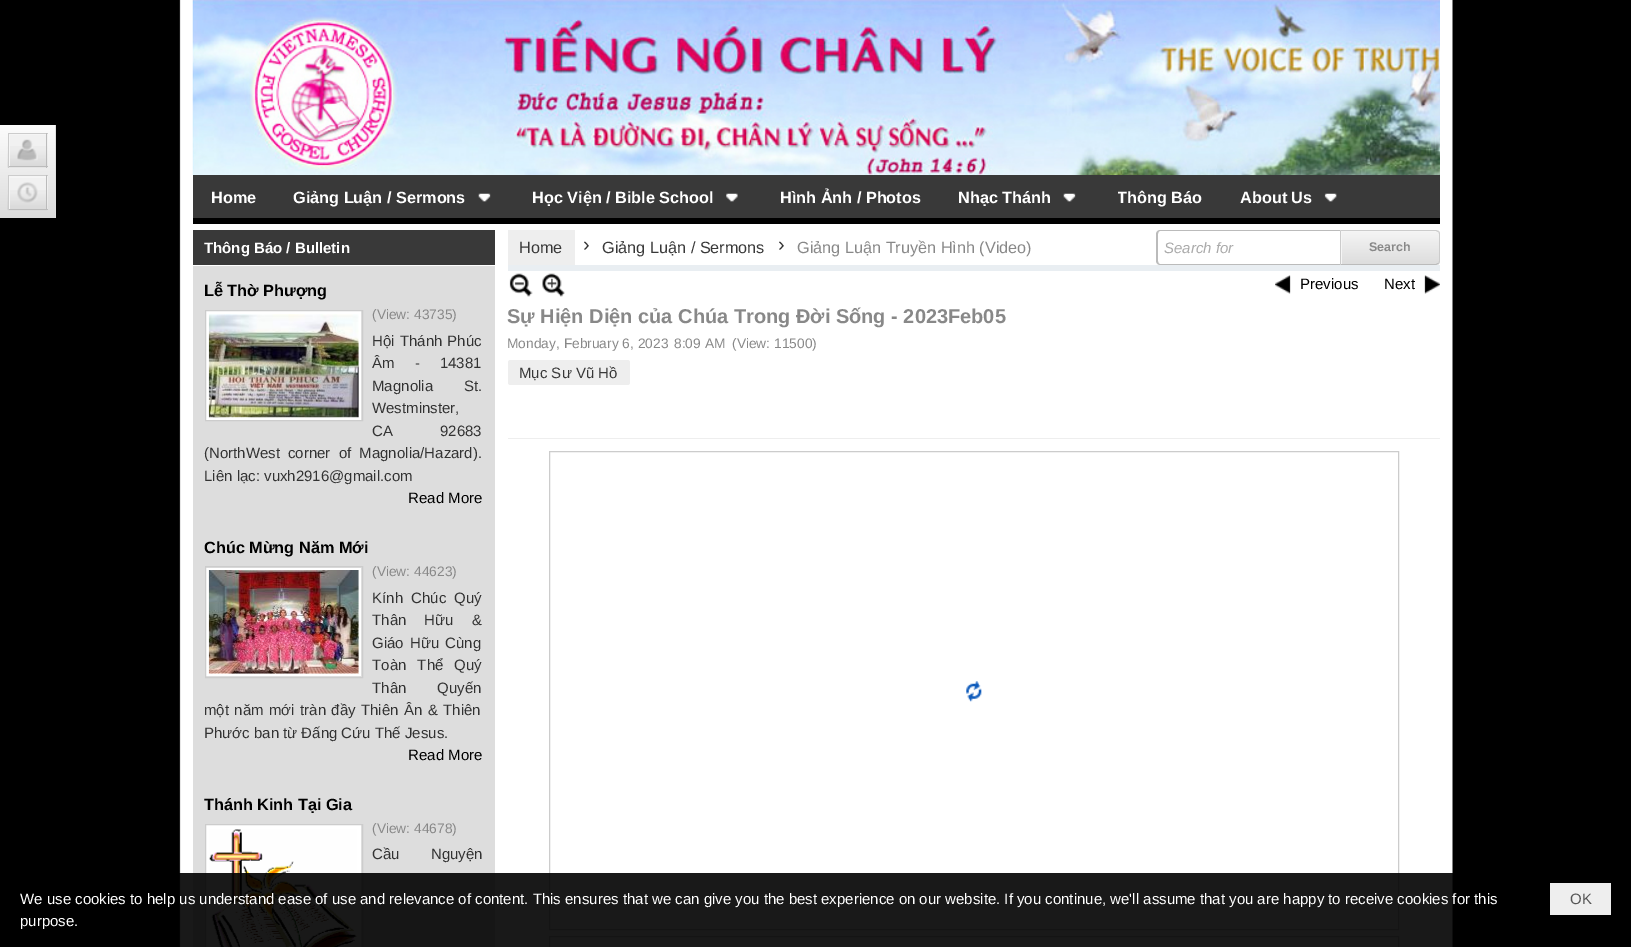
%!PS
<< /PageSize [1631 947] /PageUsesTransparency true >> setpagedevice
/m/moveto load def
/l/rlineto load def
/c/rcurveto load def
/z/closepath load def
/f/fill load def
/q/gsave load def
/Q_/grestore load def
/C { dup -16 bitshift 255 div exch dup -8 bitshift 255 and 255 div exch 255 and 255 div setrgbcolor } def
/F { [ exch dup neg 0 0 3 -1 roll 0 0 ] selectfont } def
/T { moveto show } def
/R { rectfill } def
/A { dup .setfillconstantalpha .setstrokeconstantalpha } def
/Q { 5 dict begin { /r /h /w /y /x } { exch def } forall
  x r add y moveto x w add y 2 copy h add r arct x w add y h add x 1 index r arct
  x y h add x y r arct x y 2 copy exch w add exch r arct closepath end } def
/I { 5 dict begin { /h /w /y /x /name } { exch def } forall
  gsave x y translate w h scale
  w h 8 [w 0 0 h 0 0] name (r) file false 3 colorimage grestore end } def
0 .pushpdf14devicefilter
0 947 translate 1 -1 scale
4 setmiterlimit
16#000000 C
0 0 1631 947 R
(1.rgb) 179 0 1274 947 I
q 0 125 m 55 0 l 0 93 l -55 0 l z clip newpath
<< /ShadingType 2 /ColorSpace /DeviceRGB /Coords [27 125 28 218] /Extend [true true] /Function << /FunctionType 2 /Domain [0 1] /C0 [.988 .988 .988] /C1 [.863 .863 .863] /N 1 >> >> shfill Q_
16#E0E0E0 C
55 125 1 93 R
16#F1F1F1 C
9 134 39 34 R
(2.rgb) 7 146 41 22 I
q
9 134 37 32 rectclip
16#F5F5F5 C
-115 10 m 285 0 l 0 280 l -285 0 l z 10 135 m 38 0 l 0 33 l -38 0 l z eofill
Q_
16#CCCCCC C
8 133 40 1 R
16#BBBBBB C
46 133 1 35 R
8 166 40 1 R
16#CCCCCC C
8 133 1 35 R
(3.rgb) 17 139 21 22 I
16#F1F1F1 C
10 176 38 33 R
(4.rgb) 7 190 41 21 I
q
9 176 37 33 rectclip
16#F5F5F5 C
-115 52 m 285 0 l 0 280 l -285 0 l z 10 178 m 38 0 l 0 32 l -38 0 l z eofill
Q_
16#CCCCCC C
8 175 40 1 R
16#BBBBBB C
46 175 1 35 R
8 209 40 1 R
16#CCCCCC C
8 175 1 35 R
(5.rgb) 17 182 21 21 I
(6.rgb) 192 0 1248 175 I
16#393939 C
193 175 1247 43 R
16#000000 C
193 218 1247 6 R
/LiberationSans-Bold 16.25 F
16#FFFFFF C
(Home) 211 203 T
(Giảng Luận / Sermons) 293 203 T
(7.rgb) 478 193 13 9 I
(Học Viện / Bible School) 532 203 T
(8.rgb) 726 193 12 9 I
(Hình Ảnh / Photos) 780 203 T
(Nhạc Thánh) 958 203 T
(9.rgb) 1063 193 13 9 I
q
1118 183 85 27 rectclip
(Thông Báo) 1117 203 T
Q_
(About Us) 1240 203 T
(10.rgb) 1324 193 13 9 I
16#393939 C
193 230 302 35 R
/LiberationSans-Bold 15 F
16#FFFFFF C
(Thông Báo / Bulletin) 204 253 T
16#DDDDDD C
193 266 302 681 R
/LiberationSans-Bold 16.25 F
16#000000 C
(Lễ Thờ Phượng) 204 296 T
16#FFFFFF C
206 311 155 109 R
16#CCCCCC C
205.5 310.5 157 110 rectstroke
(11.rgb) 208 314 151 104 I
/LiberationSans-Regular 13.75 F
16#888888 C
(\(View: 43735\)) 372 319 T
/LiberationSans-Regular 15 F
16#333333 C
372 346 m 1 0 32 (Hội Thánh Phúc) widthshow
372 368 m 16 0 32 (Âm - 14381) widthshow
372 391 m 27 0 32 (Magnolia St.) widthshow
(Westminster,) 372 413 T
372 436 m 43 0 32 (CA 92683) widthshow
204 458 m 4 0 32 (\(NorthWest corner of Magnolia/Hazard\).) widthshow
(Liên lạc: vuxh2916@gmail.com) 204 481 T
16#000000 C
(Read More) 408 503 T
/LiberationSans-Bold 16.25 F
(Chúc Mừng Năm Mới) 204 553 T
16#FFFFFF C
206 568 155 108 R
16#CCCCCC C
205.5 566.5 157 111 rectstroke
(12.rgb) 208 570 151 104 I
/LiberationSans-Regular 13.75 F
16#888888 C
(\(View: 44623\)) 372 576 T
/LiberationSans-Regular 15 F
16#333333 C
372 603 m 4 0 32 (Kính Chúc Quý) widthshow
372 625 m 14 0 32 (Thân Hữu &) widthshow
372 648 m 2 0 32 (Giáo Hữu Cùng) widthshow
372 670 m 7 0 32 (Toàn Thể Quý) widthshow
372 693 m 27 0 32 (Thân Quyến) widthshow
204 715 m 1.25 0 32 (một năm mới tràn đầy Thiên Ân & Thiên) widthshow
(Phước ban từ Đấng Cứu Thế Jesus.) 204 738 T
16#000000 C
(Read More) 408 760 T
/LiberationSans-Bold 16.25 F
(Thánh Kinh Tại Gia) 204 810 T
16#FFFFFF C
206 825 155 122 R
16#CCCCCC C
205.5 824.5 157 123 rectstroke
(13.rgb) 209 829 148 118 I
/LiberationSans-Regular 13.75 F
16#888888 C
(\(View: 44678\)) 372 833 T
/LiberationSans-Regular 15 F
16#333333 C
372 859 m 27 0 32 (Cầu Nguyện) widthshow
16#E9EEF2 C
508 265 932 6 R
16#EEEEEE C
508 230 67 35 R
/LiberationSans-Regular 16.25 F
16#393939 C
(Home) 519 253 T
/LiberationSans-Regular 20 F
16#333333 C
(›) 583 251 T
/LiberationSans-Regular 16.25 F
16#393939 C
(Giảng Luận / Sermons) 602 253 T
/LiberationSans-Regular 20 F
16#333333 C
(›) 778 251 T
/LiberationSans-Regular 16.25 F
16#888888 C
(Giảng Luận Truyền Hình \(Video\)) 797 253 T
16#BBBBBB C
1160 230 m 180 0 l 0 35 l -180 0 l -2 0 -4 -2 -4 -4 c 0 -27 l 0 -2 2 -4 4 -4 c z 1160 231 m 180 0 l 0 33 l -180 0 l -1 0 -2 -1 -2 -3 c 0 -27 l 0 -2 1 -3 2 -3 c z eofill
/LiberationSans-Italic 15 F
16#AAAAAA C
(Search for) 1164 253 T
q 1341 231 m 95.5 0 l 1.5 0 2.5 1 2.5 2.5 c 0 28 l 0 1.5 -1 2.5 -2.5 2.5 c -95.5 0 l z clip newpath
<< /ShadingType 2 /ColorSpace /DeviceRGB /Coords [1390 231 1390 264] /Extend [true true] /Function << /FunctionType 2 /Domain [0 1] /C0 [.961 .961 .961] /C1 [.867 .867 .867] /N 1 >> >> shfill Q_
16#F5F5F5 C
1342 232 m 97 0 l -2 -1 l -96 0 l 0 33 l 1 0 l z f
16#CCCCCC C
1340 230 m 1 1 l 95 0 l 2 1 l 1 -1 l -3 -1 l z f
1440 261 m 0 -27 l 0 -1 -.5 -2 -1 -3 c -1 1 l 1 0 1 1 1 2 c 0 27 l 0 1 0 2 -1 2 c 1 1 l .5 -1 1 -2 1 -3 c z f
16#BBBBBB C
1436 265 m 3 -1 l -1 -1 l -2 1 l -95 0 l -1 1 l z f
16#CCCCCC C
1340 230 m 0 35 l 1 -1 l 0 -33 l z f
/LiberationSans-Bold 12.5 F
16#888888 C
(Search) 1369 251 T
16#EEEEEE C
508 438 932 1 R
(14.rgb) 509 273 24 24 I
(15.rgb) 542 273 23 24 I
(16.rgb) 1275 275 16 19 I
/LiberationSans-Regular 15 F
16#000000 C
(Previous) 1300 289 T
(17.rgb) 1424 275 16 19 I
(Next) 1384 289 T
/LiberationSans-Bold 20 F
16#888888 C
(Sự Hiện Diện của Chúa Trong Đời Sống - 2023Feb05) 507 323 T
/LiberationSans-Regular 13.75 F
(Monday, February 6, 2023) 507 348 T
(8:09 AM) 674 348 T
(\(View: 11500\)) 732 348 T
16#EEEEEE C
508 360 122 25 2.5 Q f
/LiberationSans-Regular 15 F
16#393939 C
(Mục Sư Vũ Hồ) 519 378 T
(18.rgb) 966 681 16 21 I
16#CCCCCC C
549.5 451.5 849 478 rectstroke
549.5 936.5 849 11 rectstroke
0.9 A
16#000000 C
179 873 1274 74 R
1 A
16#FFFFFF C
(We use cookies to help us understand ease of use and relevance of content. This ensures that we can give you the best experience on our website. If you continue, we'll assume that you are happy to receive cookies for this) 20 904 T
(purpose.) 20 926 T
16#EEEEEE C
1550 883 61 32 R
16#555555 C
(OK) 1570 904 T
.poppdf14devicefilter showpage
